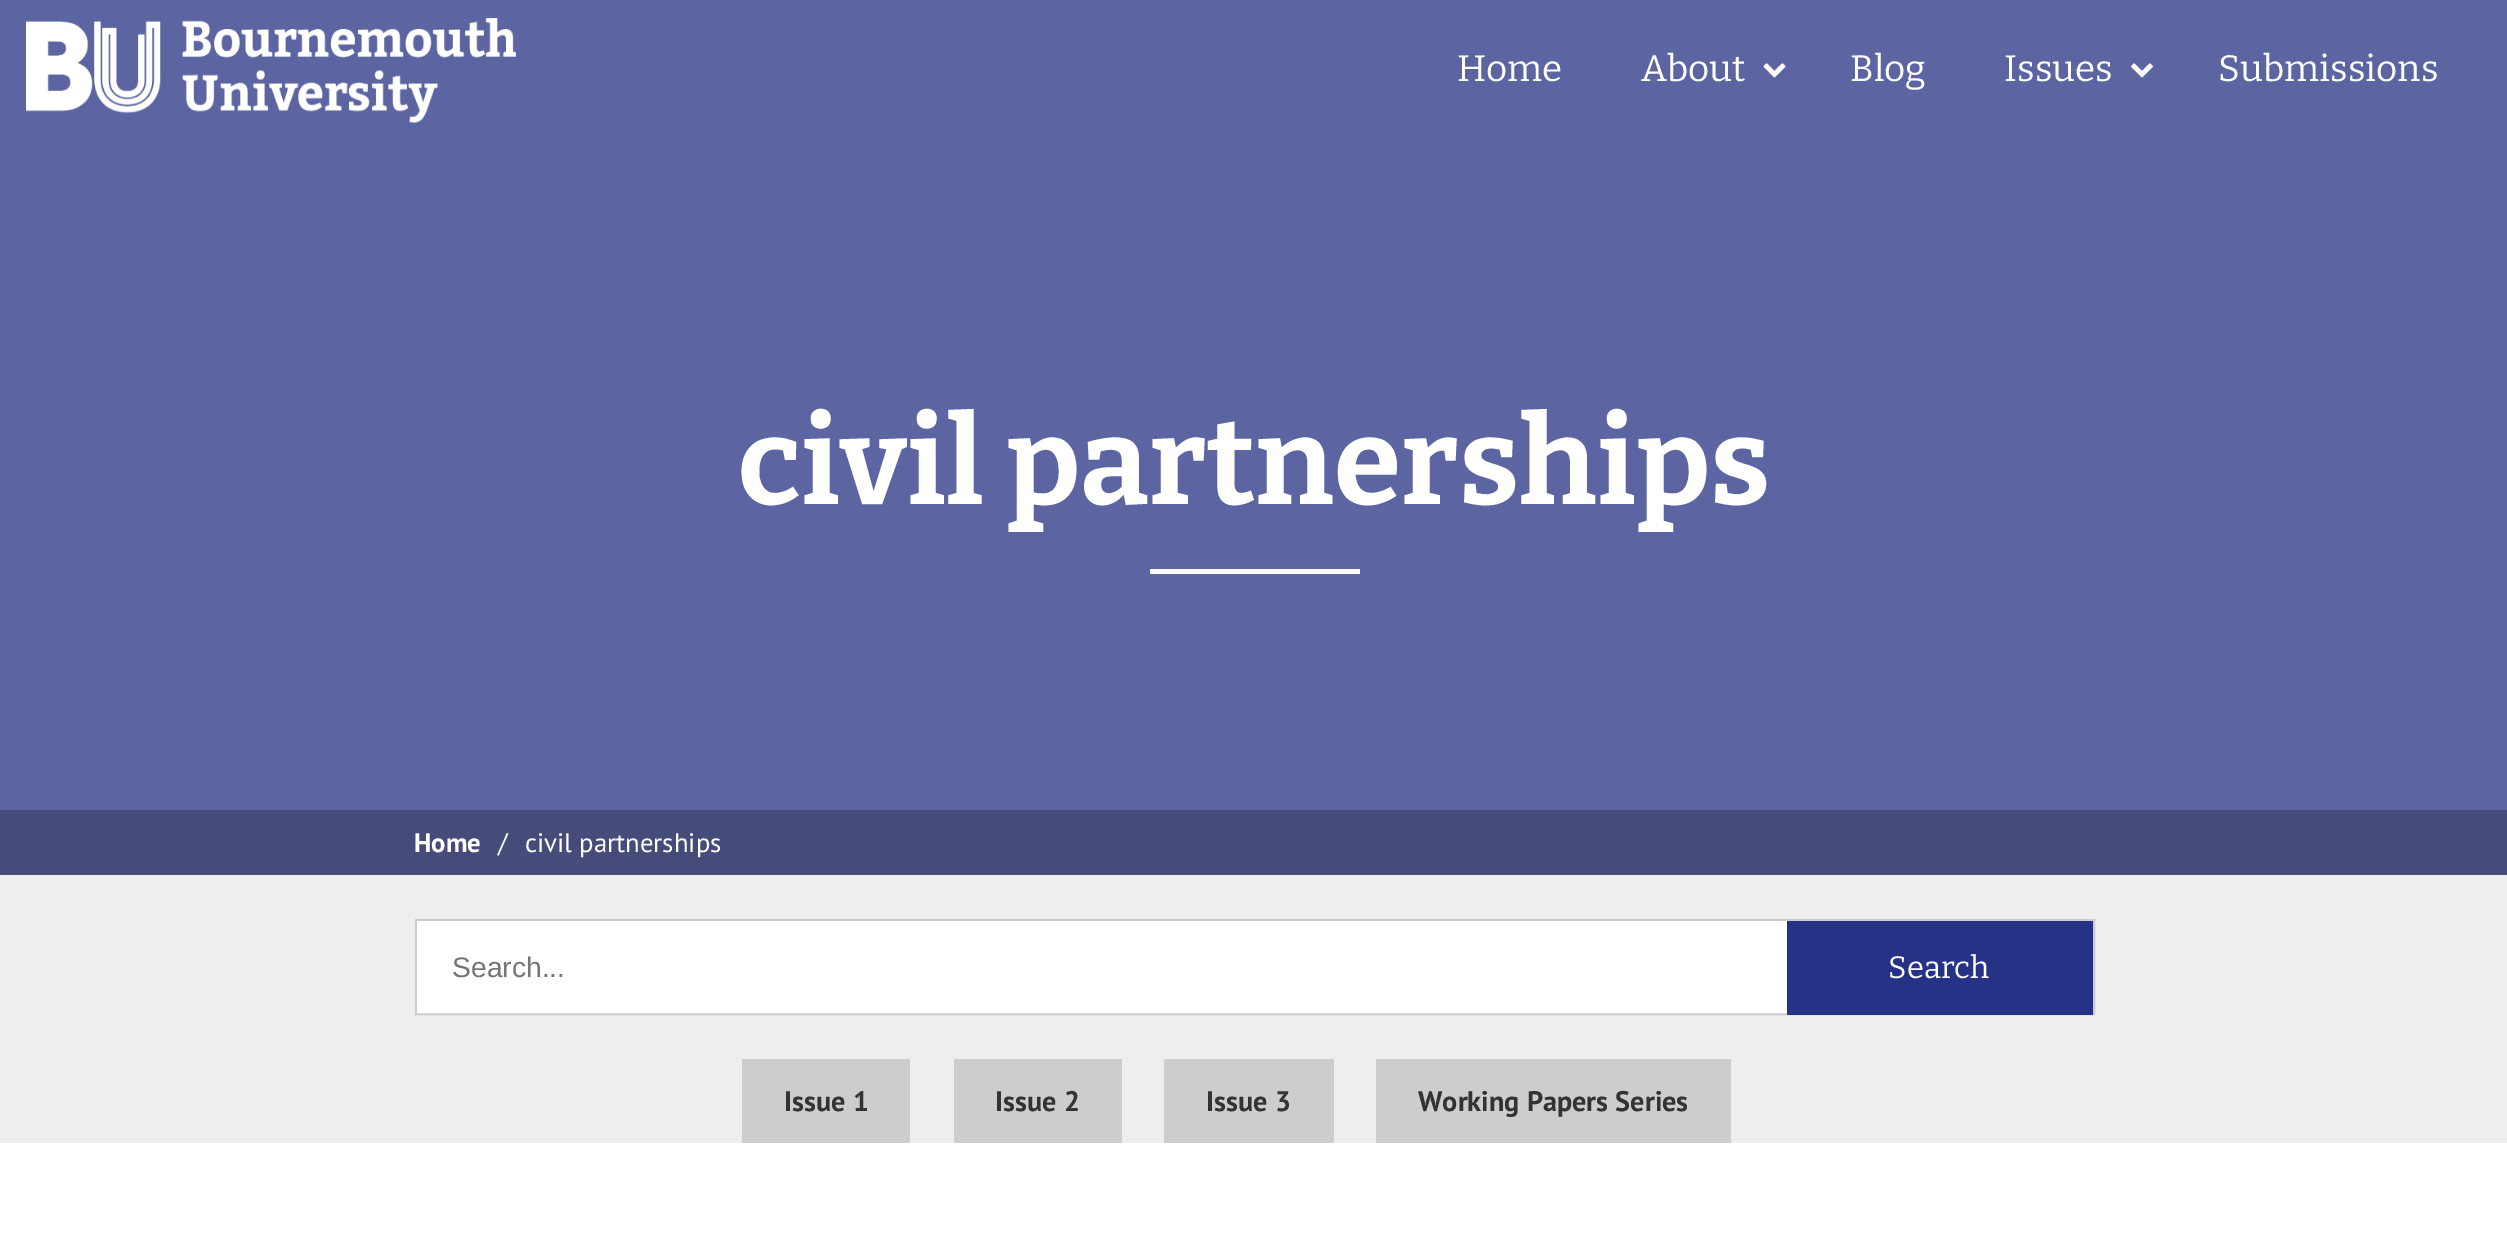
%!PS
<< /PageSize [2507 1240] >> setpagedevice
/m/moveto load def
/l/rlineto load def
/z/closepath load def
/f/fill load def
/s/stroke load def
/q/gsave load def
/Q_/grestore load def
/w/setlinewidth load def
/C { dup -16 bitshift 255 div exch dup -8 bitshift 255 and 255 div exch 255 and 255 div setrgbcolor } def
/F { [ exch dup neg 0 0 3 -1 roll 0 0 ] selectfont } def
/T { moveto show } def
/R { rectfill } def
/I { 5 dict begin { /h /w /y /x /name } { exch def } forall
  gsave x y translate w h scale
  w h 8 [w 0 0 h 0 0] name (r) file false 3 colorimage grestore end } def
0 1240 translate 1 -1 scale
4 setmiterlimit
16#EEEEEE C
0 0 2507 1240 R
16#5C65A2 C
0 0 2507 810 R
(1.rgb) 26 18 490 105 I
/Bitter-Regular 36.75 F
16#FFFFFD C
(Home) 1457 81 T
(About) 1641 81 T
(2.rgb) 1763 63 23 15 I
(Blog) 1850 81 T
(Issues) 2004 81 T
(3.rgb) 2131 63 22 15 I
(Submissions) 2218 81 T
/Bitter-Bold 122.5 F
(civil partnerships) 738 504 T
16#FFFFFF C
1150 569 210 5 R
16#454C7A C
0 810 2507 65 R
/PTSans-Bold 26.75 F
16#FFFFFD C
(Home) 414 852 T
/PTSans-Regular 26.75 F
(/) 498 852 T
(civil partnerships) 525 852 T
16#CCCCCC C
2 w
416 920 1678 94 rectstroke
16#FFFFFF C
418 922 m 1368 0 l 0 90 l -1368 0 l z q f Q_
16#FFFFFD C
s
/LiberationSans-Regular 28.25 F
16#757575 C
(Search...) 452 977 T
16#263286 C
1787 921 306 94 R
/Bitter-Regular 31 F
16#FFFFFD C
(Search) 1888 978 T
16#CDCDCD C
742 1059 168 84 R
/PTSans-Bold 28.25 F
16#333333 C
(Issue 1) 784 1111 T
16#CDCDCD C
954 1059 168 84 R
16#333333 C
(Issue 2) 995 1111 T
16#CDCDCD C
1164 1059 170 84 R
16#333333 C
(Issue 3) 1206 1111 T
16#CDCDCD C
1376 1059 355 84 R
16#333333 C
(Working Papers Series) 1418 1111 T
16#FFFFFF C
0 1143 2507 97 R
showpage
